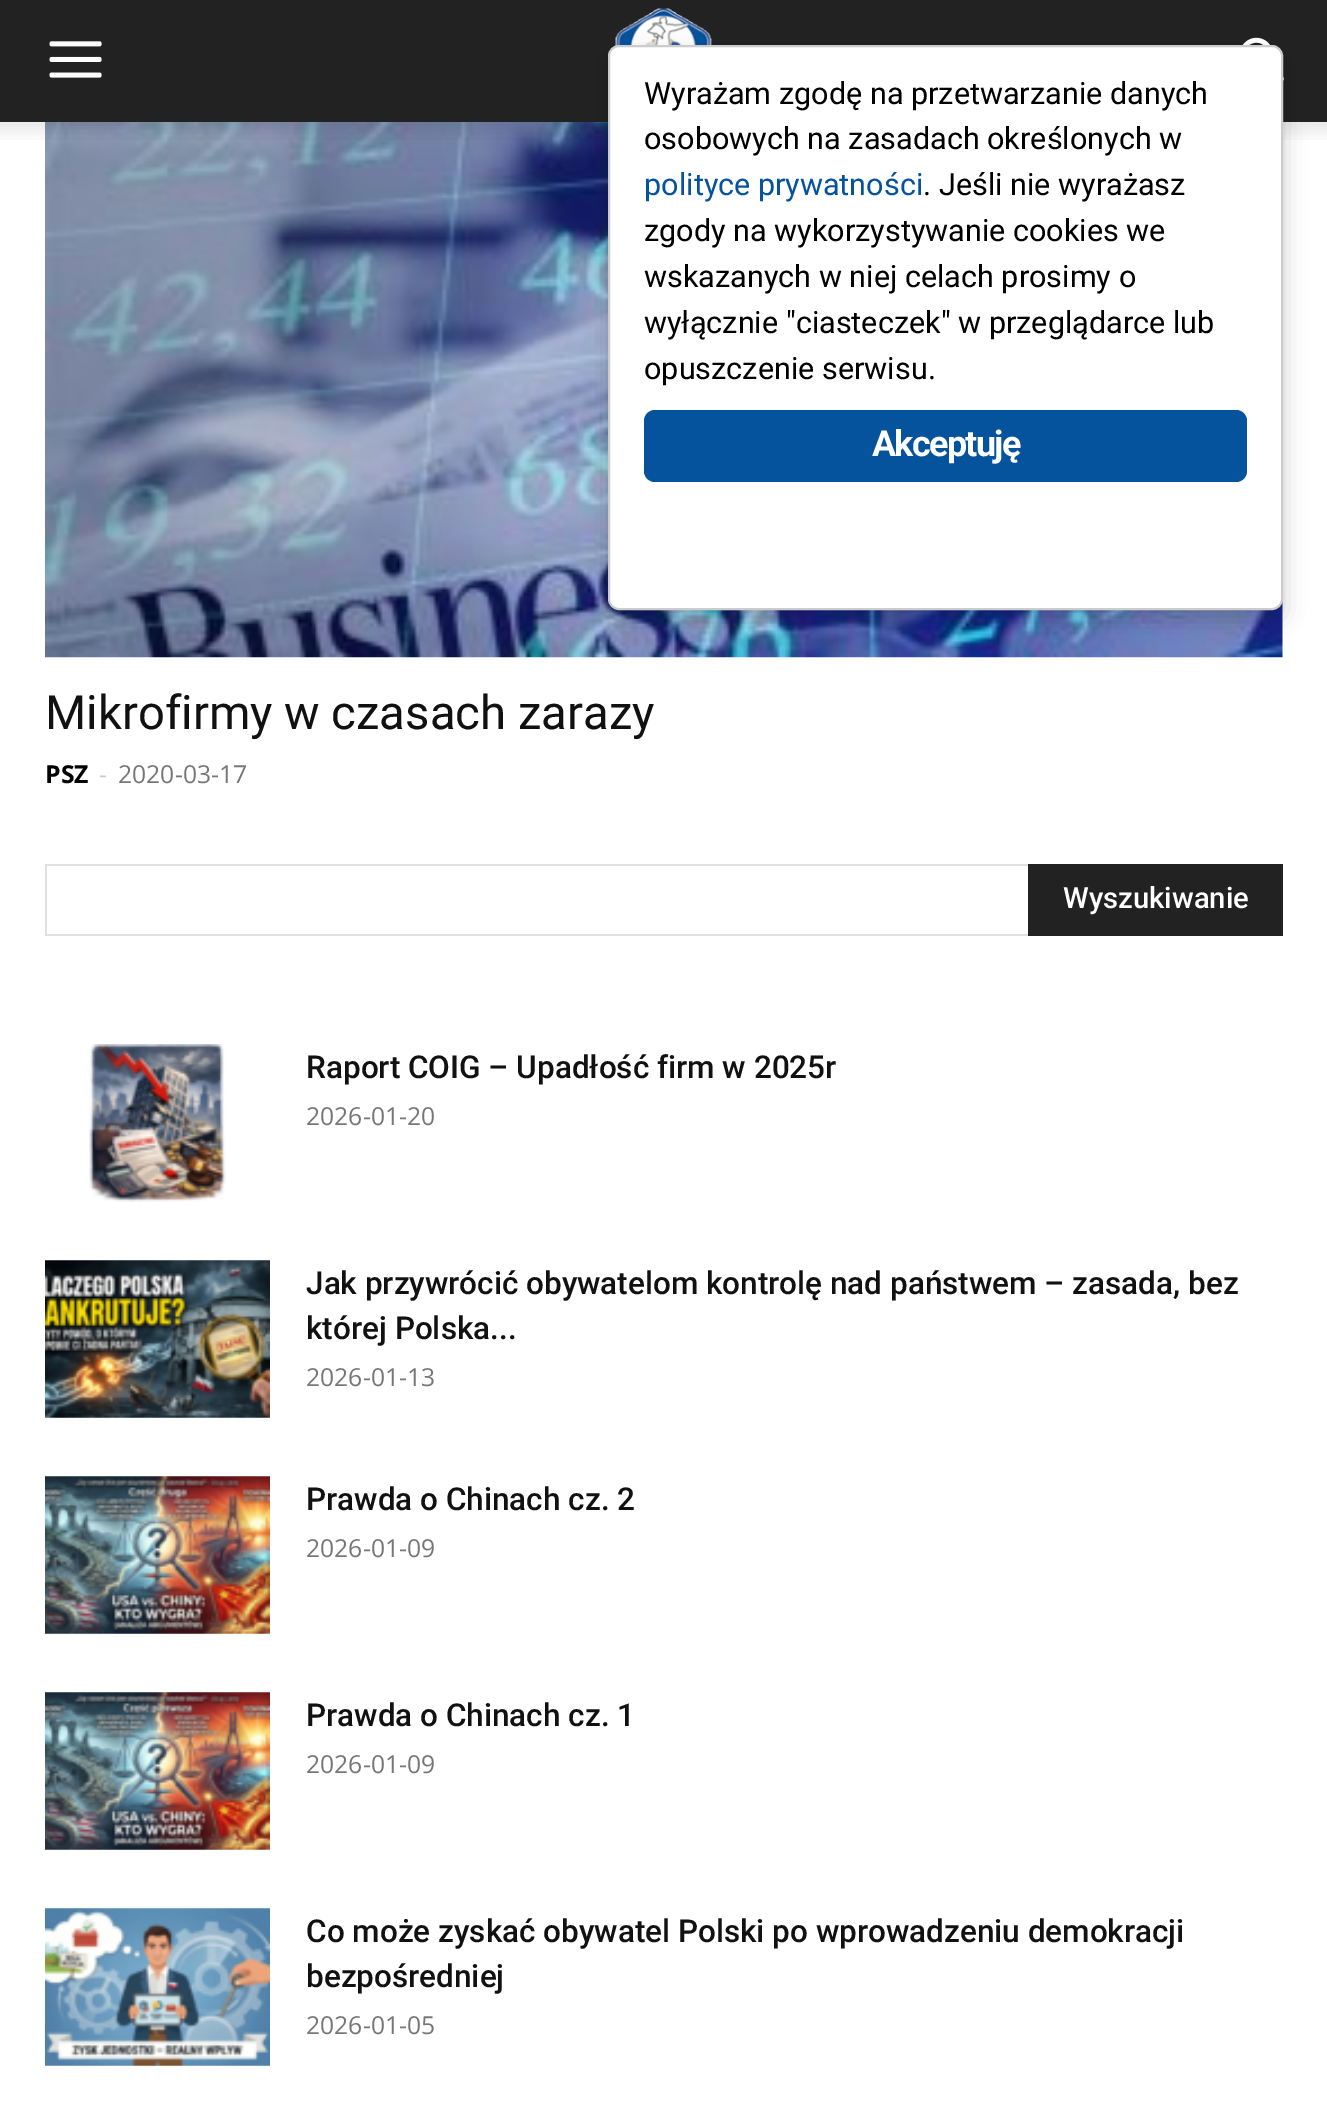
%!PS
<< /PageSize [1327 2101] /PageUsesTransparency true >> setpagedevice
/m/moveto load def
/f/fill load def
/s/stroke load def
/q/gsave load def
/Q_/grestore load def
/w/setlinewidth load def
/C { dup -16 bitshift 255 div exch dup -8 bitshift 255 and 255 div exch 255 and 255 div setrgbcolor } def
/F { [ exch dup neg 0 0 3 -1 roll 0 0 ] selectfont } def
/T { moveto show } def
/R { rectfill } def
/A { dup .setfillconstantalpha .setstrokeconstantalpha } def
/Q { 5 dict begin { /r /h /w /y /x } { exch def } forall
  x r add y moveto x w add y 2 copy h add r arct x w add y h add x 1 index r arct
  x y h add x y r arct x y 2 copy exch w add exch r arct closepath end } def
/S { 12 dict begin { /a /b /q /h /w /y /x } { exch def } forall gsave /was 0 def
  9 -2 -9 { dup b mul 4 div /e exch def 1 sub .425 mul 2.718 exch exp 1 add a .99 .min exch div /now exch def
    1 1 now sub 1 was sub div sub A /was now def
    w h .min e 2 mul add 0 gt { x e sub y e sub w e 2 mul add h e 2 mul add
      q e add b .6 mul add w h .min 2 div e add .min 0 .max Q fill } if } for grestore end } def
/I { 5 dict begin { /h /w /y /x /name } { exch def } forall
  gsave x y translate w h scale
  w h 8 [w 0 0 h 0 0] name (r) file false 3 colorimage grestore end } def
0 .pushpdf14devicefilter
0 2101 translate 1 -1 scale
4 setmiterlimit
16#FFFFFF C
0 0 1327 2101 R
16#222222 C
0 0 1327 122 R
(1.rgb) 615 8 97 38 I
(3.rgb) 1242 37 42 44 I
(5.rgb) 45 122 1238 536 I
(4.rgb) 0 122 1327 18 I
16#000000 C
608 56 675 565 11 11 .2 S
16#FFFFFF C
609 46 673 563 10 Q q f Q_
16#CCCCCC C
2 w
s
/Roboto-Regular 30.6 F
16#000000 C
(Wyrażam zgodę na przetwarzanie danych) 644 104 T
(osobowych na zasadach określonych w) 644 149 T
16#05539C C
(polityce prywatności) 644 195 T
16#000000 C
(. Jeśli nie wyrażasz) 923 195 T
(zgody na wykorzystywanie cookies we) 644 241 T
(wskazanych w niej celach prosimy o) 644 287 T
(wyłącznie "ciasteczek" w przeglądarce lub) 644 333 T
(opuszczenie serwisu.) 644 379 T
16#05539C C
644 410 603 72 11 Q f
/Roboto-Bold 36 F
16#FFFFFF C
872 456 m -1.75 0 (Akceptuję) ashow
(2.rgb) 49 41 53 37 I
/Roboto-Regular 47.25 F
16#111111 C
(Mikrofirmy w czasach zarazy) 45 729 T
/OpenSans-Bold 24.75 F
16#000000 C
(PSZ) 45 783 T
/OpenSans-Regular 24.75 F
16#CCCCCC C
(-) 99 783 T
16#767676 C
(2020-03-17) 118 783 T
16#E1E1E1 C
45 864 983 2 R
45 934 983 2 R
45 864 2 72 R
16#222222 C
1028 864 255 72 R
/Roboto-Medium 29.25 F
16#FFFFFF C
(Wyszukiwanie) 1063 908 T
(6.rgb) 89 1044 137 158 I
/Roboto-Medium 31.5 F
16#111111 C
(Raport COIG – Upadłość firm w 2025r) 306 1078 T
/OpenSans-Regular 24.75 F
16#767676 C
(2026-01-20) 306 1125 T
(7.rgb) 45 1260 225 158 I
/Roboto-Medium 31.5 F
16#111111 C
(Jak przywrócić obywatelom kontrolę nad państwem – zasada, bez) 306 1294 T
(której Polska...) 306 1339 T
/OpenSans-Regular 24.75 F
16#767676 C
(2026-01-13) 306 1386 T
(8.rgb) 45 1476 225 158 I
/Roboto-Medium 31.5 F
16#111111 C
(Prawda o Chinach cz. 2) 306 1510 T
/OpenSans-Regular 24.75 F
16#767676 C
(2026-01-09) 306 1557 T
(9.rgb) 45 1692 225 158 I
/Roboto-Medium 31.5 F
16#111111 C
(Prawda o Chinach cz. 1) 306 1726 T
/OpenSans-Regular 24.75 F
16#767676 C
(2026-01-09) 306 1773 T
(10.rgb) 45 1908 225 158 I
/Roboto-Medium 31.5 F
16#111111 C
(Co może zyskać obywatel Polski po wprowadzeniu demokracji) 306 1942 T
(bezpośredniej) 306 1987 T
/OpenSans-Regular 24.75 F
16#767676 C
(2026-01-05) 306 2034 T
.poppdf14devicefilter showpage
